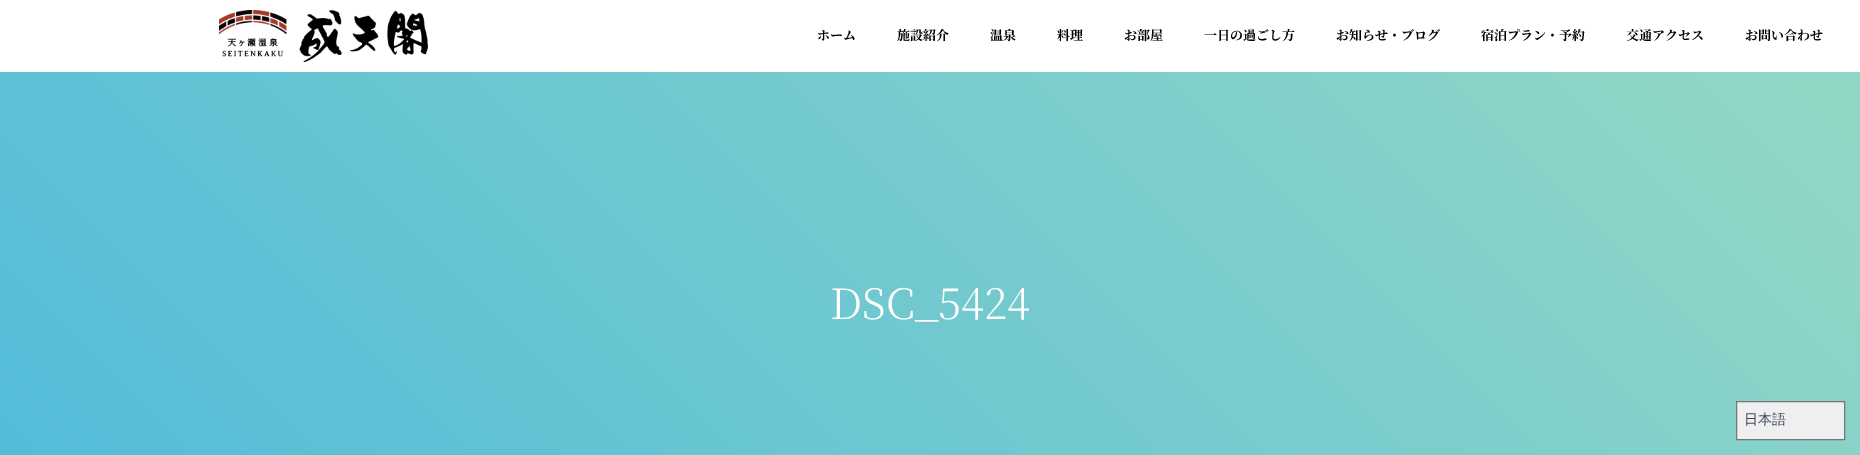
%!PS
<< /PageSize [1860 455] >> setpagedevice
/m/moveto load def
/l/rlineto load def
/z/closepath load def
/f/fill load def
/s/stroke load def
/q/gsave load def
/Q_/grestore load def
/C { dup -16 bitshift 255 div exch dup -8 bitshift 255 and 255 div exch 255 and 255 div setrgbcolor } def
/F { [ exch dup neg 0 0 3 -1 roll 0 0 ] selectfont } def
/T { moveto show } def
/R { rectfill } def
/I { 5 dict begin { /h /w /y /x /name } { exch def } forall
  gsave x y translate w h scale
  w h 8 [w 0 0 h 0 0] name (r) file false 3 colorimage grestore end } def
0 455 translate 1 -1 scale
4 setmiterlimit
16#FFFFFF C
0 0 1860 455 R
(1.rgb) 219 10 209 52 I
/NotoSerifJP-Bold 13 F
16#000000 C
(ホーム) 817 40 T
(施設紹介) 897 40 T
(温泉) 990 40 T
(料理) 1057 40 T
(お部屋) 1124 40 T
(一日の過ごし方) 1204 40 T
(お知らせ・ブログ) 1336 40 T
(宿泊プラン・予約) 1481 40 T
(交通アクセス) 1626 40 T
(お問い合わせ) 1745 40 T
q 0 72 m 1860 0 l 0 383 l -1860 0 l z clip newpath
<< /ShadingType 2 /ColorSpace /DeviceRGB /Coords [355 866 1505 -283] /Extend [true true] /Function << /FunctionType 2 /Domain [0 1] /C0 [.318 .737 .855] /C1 [.576 .847 .773] /N 1 >> >> shfill Q_
/NotoSerifJP-Light 42 F
16#FFFFFF C
(DSC_5424) 830 319 T
16#EFEFEF C
1736.5 401.5 m 108 0 l 0 38 l -108 0 l z q f Q_
16#767676 C
s
/WenQuanYiZenHei-Medium 14 F
16#3C4858 C
(日本語) 1744 424 T
showpage
